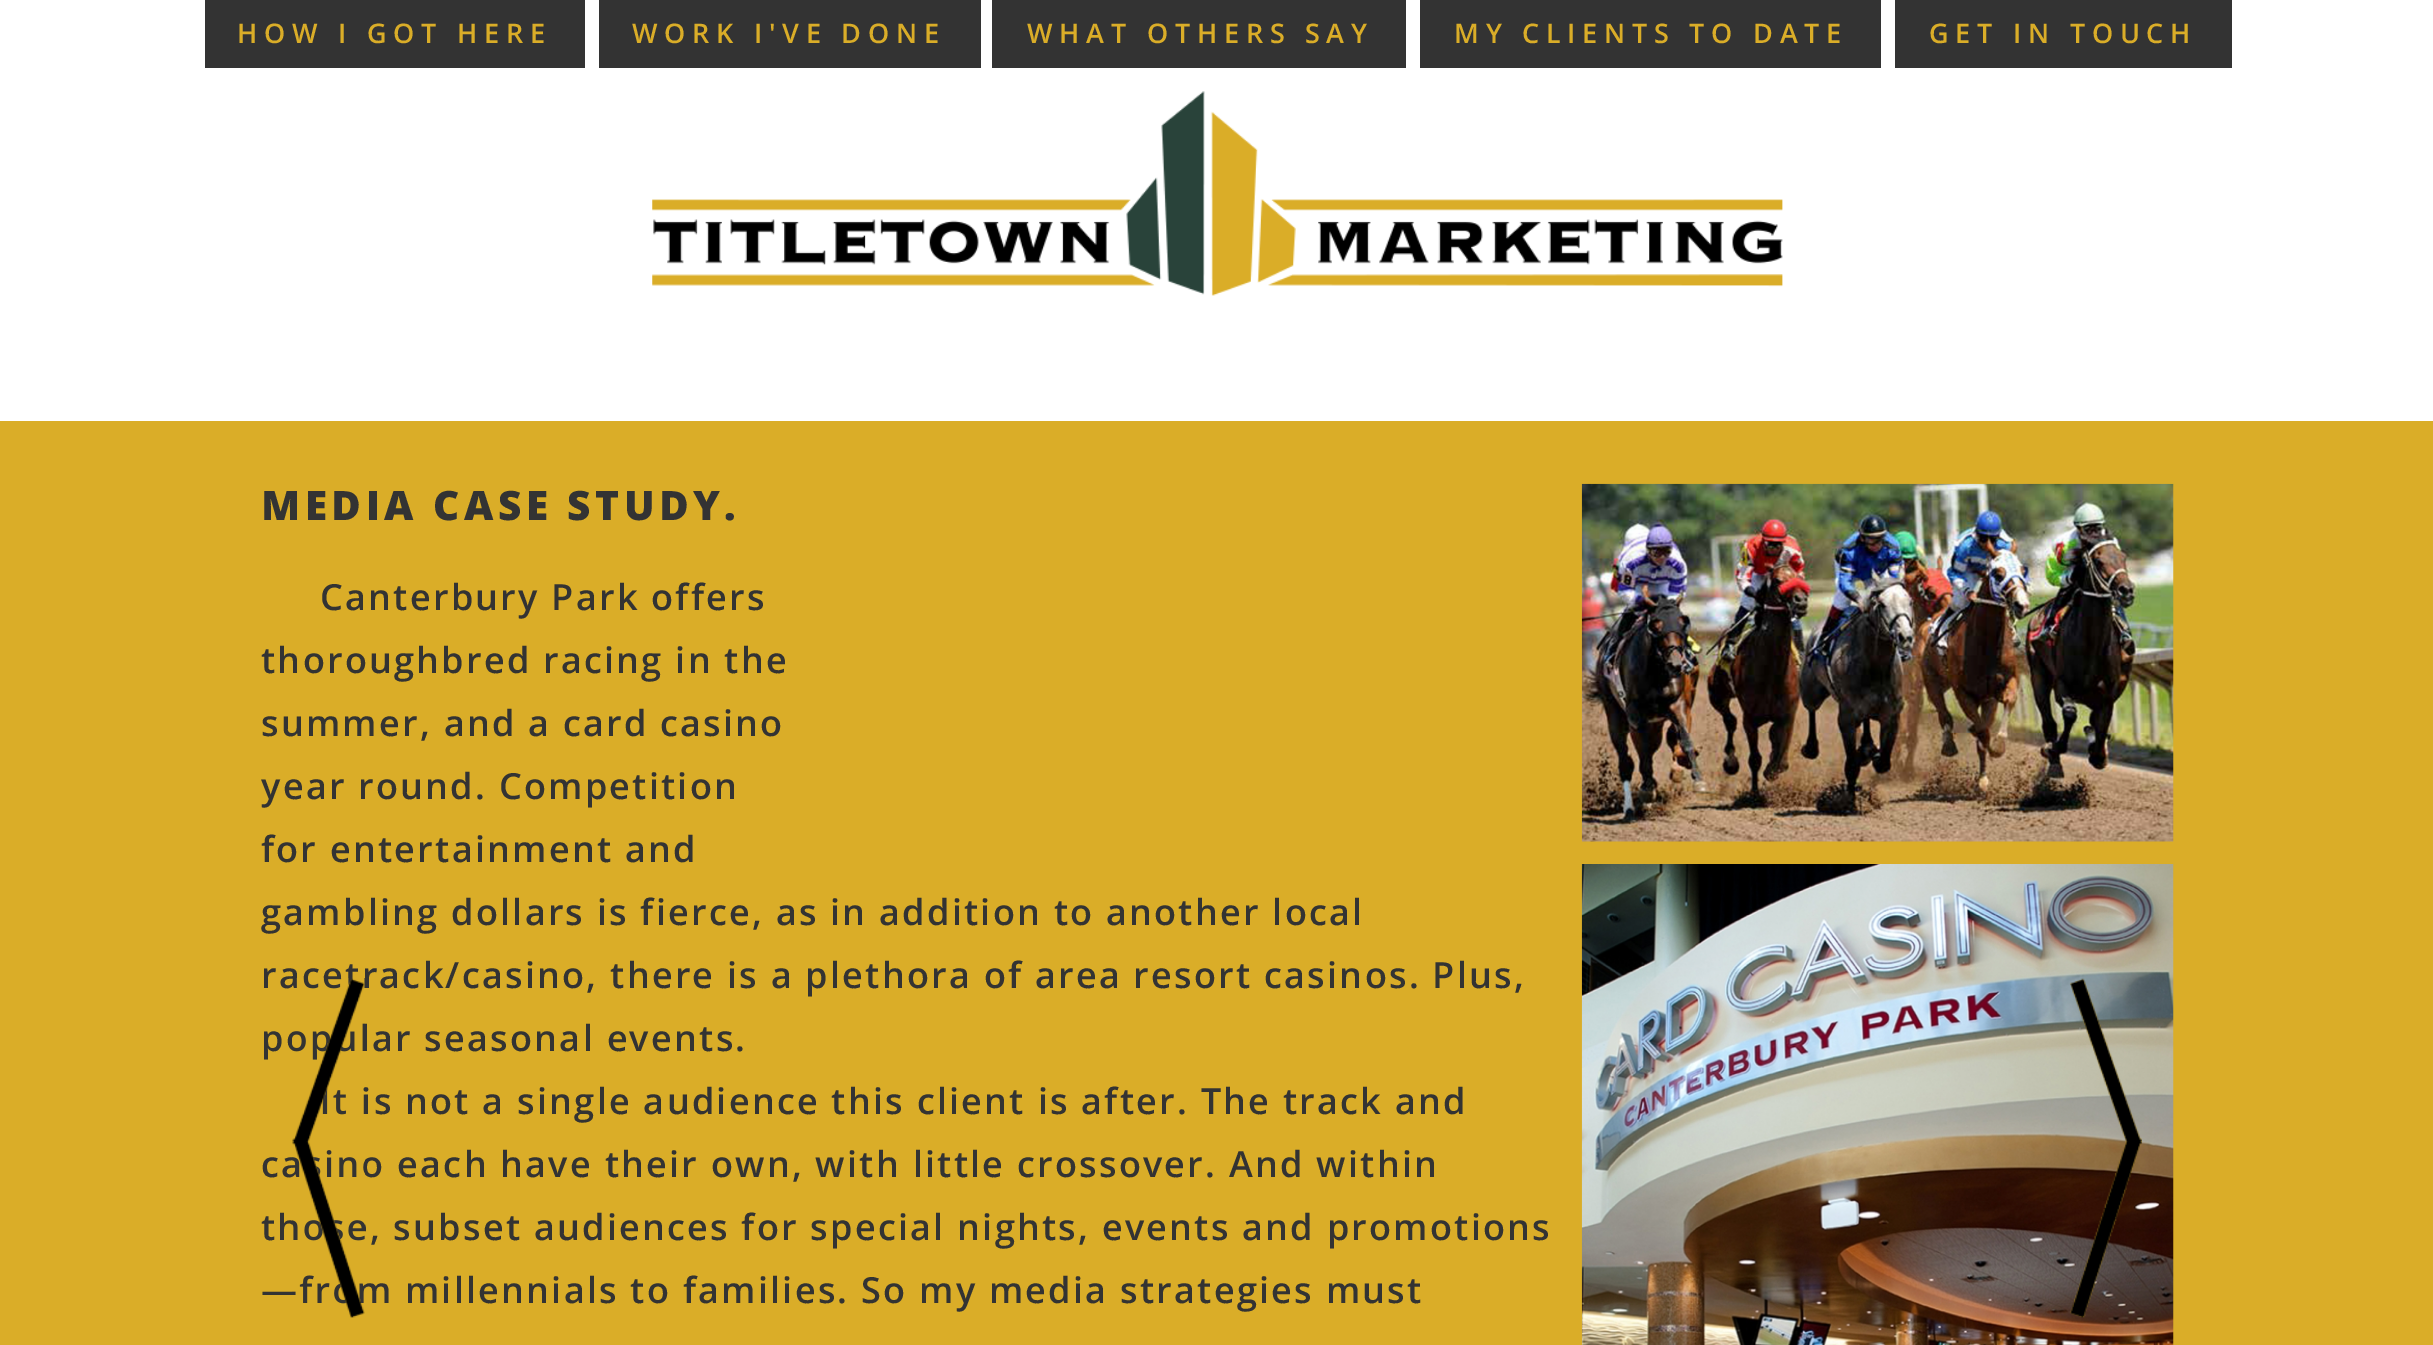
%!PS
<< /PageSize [2433 1345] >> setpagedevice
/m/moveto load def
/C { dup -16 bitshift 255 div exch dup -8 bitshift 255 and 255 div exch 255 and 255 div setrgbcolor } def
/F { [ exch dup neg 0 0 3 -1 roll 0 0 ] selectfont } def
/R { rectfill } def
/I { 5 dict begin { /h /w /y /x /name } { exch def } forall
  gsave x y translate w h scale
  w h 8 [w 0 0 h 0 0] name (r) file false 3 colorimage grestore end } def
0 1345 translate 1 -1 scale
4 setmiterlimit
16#FFFFFF C
0 0 2433 1345 R
16#333333 C
205 0 380 68 R
/OpenSans-SemiBold 27 F
16#DAAD28 C
237 43 m 6.75 0 (HOW I GOT HERE) ashow
16#333333 C
599 0 382 68 R
16#DAAD28 C
632 43 m 6.75 0 (WORK I'VE DONE) ashow
16#333333 C
992 0 414 68 R
16#DAAD28 C
1027 43 m 6.75 0 (WHAT OTHERS SAY) ashow
16#333333 C
1420 0 461 68 R
16#DAAD28 C
1454 43 m 6.75 0 (MY CLIENTS TO DATE) ashow
16#333333 C
1895 0 337 68 R
16#DAAD28 C
1929 43 m 6.75 0 (GET IN TOUCH) ashow
(1.rgb) 652 91 1131 205 I
0 421 2433 924 R
/OpenSans-ExtraBold 40.5 F
16#333333 C
261 520 m 4.5 0 (MEDIA CASE STUDY.) ashow
(2.rgb) 1581 483 593 359 I
(3.rgb) 1581 864 593 481 I
/OpenSans-SemiBold 36 F
320 610 m 2.25 0 (Canterbury Park offers) ashow
261 673 m 2.25 0 (thoroughbred racing in the) ashow
261 736 m 2.25 0 (summer, and a card casino) ashow
261 799 m 2.25 0 (year round. Competition) ashow
261 862 m 2.25 0 (for entertainment and) ashow
261 925 m 2.25 0 (gambling dollars is fierce, as in addition to another local) ashow
261 988 m 2.25 0 (racetrack/casino, there is a plethora of area resort casinos. Plus,) ashow
261 1051 m 2.25 0 (popular seasonal events.) ashow
320 1114 m 2.25 0 (It is not a single audience this client is after. The track and) ashow
261 1177 m 2.25 0 (casino each have their own, with little crossover. And within) ashow
261 1240 m 2.25 0 (those, subset audiences for special nights, events and promotions) ashow
261 1303 m 2.25 0 (—from millennials to families. So my media strategies must) ashow
(4.rgb) 292 978 73 340 I
(5.rgb) 2070 978 72 340 I
showpage
